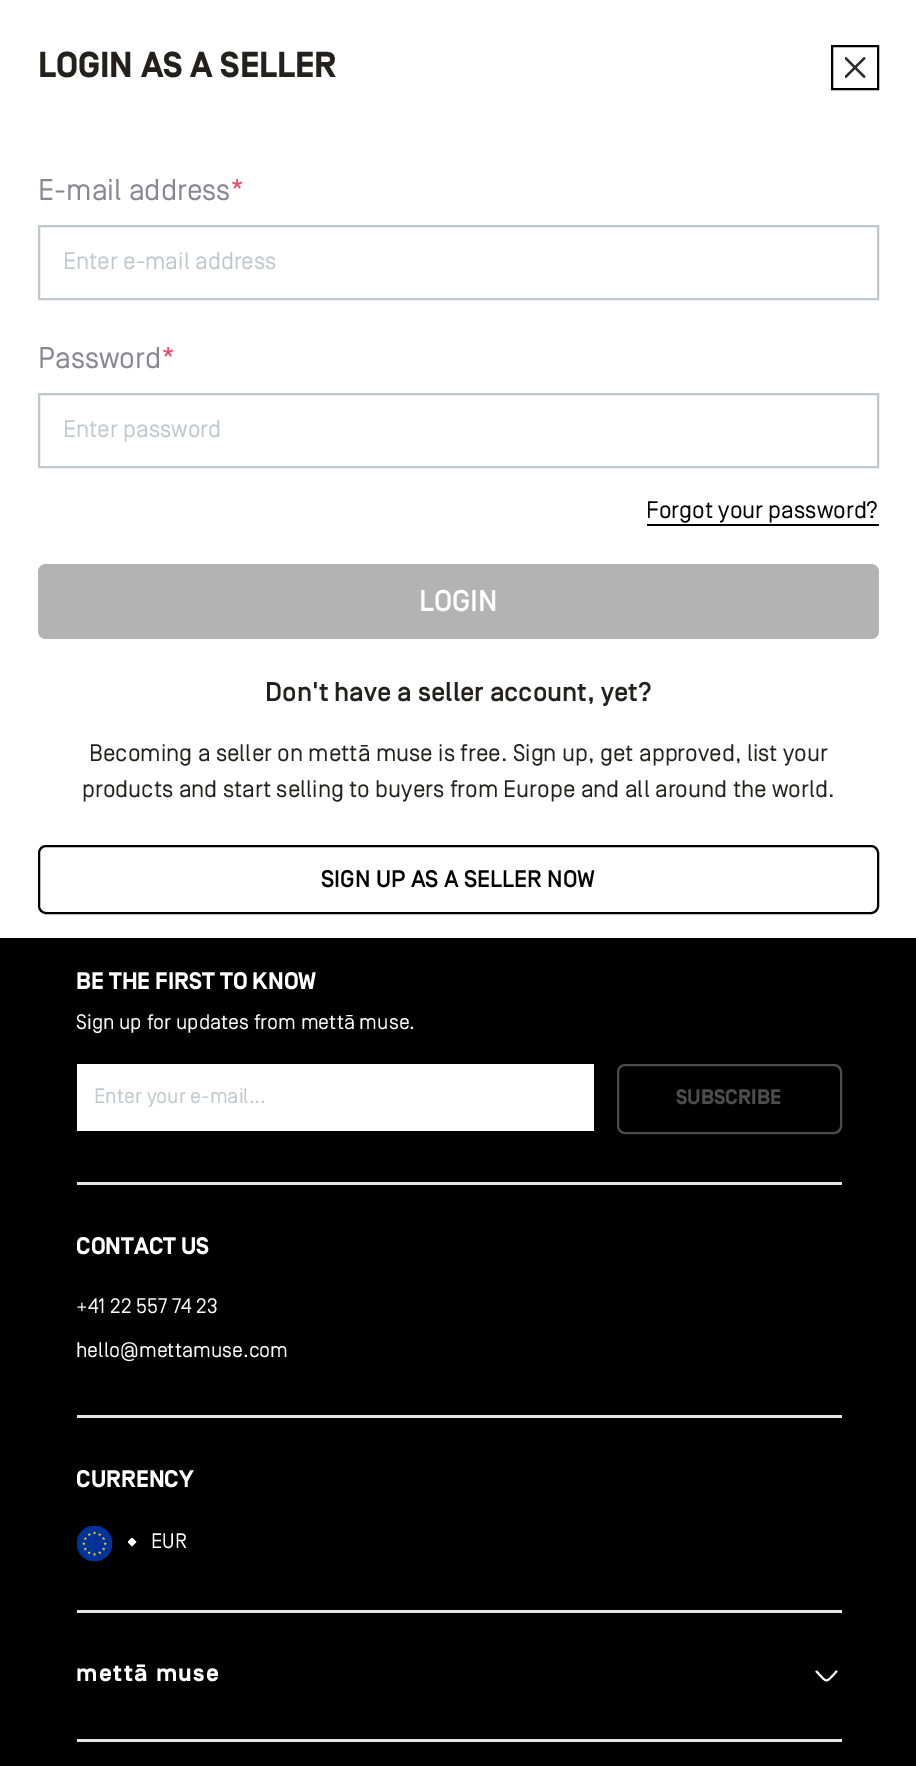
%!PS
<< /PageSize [916 1766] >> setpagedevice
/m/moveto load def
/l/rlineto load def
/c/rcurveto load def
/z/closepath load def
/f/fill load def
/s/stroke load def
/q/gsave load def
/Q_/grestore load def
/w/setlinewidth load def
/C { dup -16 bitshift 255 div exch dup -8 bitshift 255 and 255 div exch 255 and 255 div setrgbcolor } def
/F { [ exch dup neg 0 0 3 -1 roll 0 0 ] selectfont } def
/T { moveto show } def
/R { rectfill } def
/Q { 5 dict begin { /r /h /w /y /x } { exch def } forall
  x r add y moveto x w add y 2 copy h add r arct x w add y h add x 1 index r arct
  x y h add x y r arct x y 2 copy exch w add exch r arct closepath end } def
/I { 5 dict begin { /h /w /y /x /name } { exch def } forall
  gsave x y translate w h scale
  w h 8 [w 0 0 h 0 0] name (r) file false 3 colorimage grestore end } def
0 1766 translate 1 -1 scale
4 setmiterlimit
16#FFFFFF C
0 0 916 1766 R
/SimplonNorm-Bold 36 F
16#252020 C
(LOGIN AS A SELLER) 38 77 T
16#000000 C
2 w
832 46 46 43 rectstroke
(1.rgb) 845 57 21 21 I
/SimplonNorm-Regular 30 F
16#888792 C
(E-mail address) 38 200 T
16#EB4C6B C
(*) 230 200 T
16#BFC8CD C
39 226 839 73 rectstroke
/SimplonNorm-Regular 24 F
(Enter e-mail address) 63 269 T
/SimplonNorm-Regular 30 F
16#888792 C
(Password) 38 368 T
16#EB4C6B C
(*) 161 368 T
16#BFC8CD C
39 394 839 73 rectstroke
/SimplonNorm-Regular 24 F
(Enter password) 63 437 T
16#000000 C
(Forgot your password?) 646 518 T
647 524 232 2 R
16#B3B3B3 C
38 564 841 75 8 Q f
/SimplonNorm-Medium 30 F
16#FFFFFF C
(LOGIN) 419 611 T
/SimplonNorm-Medium 27 F
16#252020 C
(Don't have a seller account, yet?) 265 701 T
/SimplonNorm-Regular 24 F
(Becoming a seller on mettā muse is free. Sign up, get approved, list your) 89 761 T
(products and start selling to buyers from Europe and all around the world.) 82 797 T
16#000000 C
39 846 839 67 7 Q s
/SimplonNorm-Medium 24 F
(SIGN UP AS A SELLER NOW) 321 887 T
0 938 916 828 R
/SimplonNorm-Bold 24 F
16#FFFFFF C
(BE THE FIRST TO KNOW) 76 989 T
/SimplonNorm-Regular 21 F
(Sign up for updates from mettā muse.) 76 1029 T
77 1064 517 67 R
16#BFC8CD C
(Enter your e-mail...) 94 1103 T
16#4D4D4D C
618 1065 223 68 7 Q s
/SimplonNorm-Bold 21 F
(SUBSCRIBE) 676 1104 T
16#E5E5E5 C
77 1182 765 3 R
/SimplonNorm-Bold 24 F
16#FFFFFF C
(CONTACT US) 76 1254 T
/SimplonNorm-Regular 21 F
(+41 22 557 74 23) 76 1313 T
(hello@mettamuse.com) 76 1357 T
16#E5E5E5 C
77 1415 765 3 R
/SimplonNorm-Bold 24 F
16#FFFFFF C
(CURRENCY) 76 1487 T
(2.rgb) 77 1526 36 36 I
q
128 1538 9 9 rectclip
132 1537.5 m 4.5 4.5 l -4.5 4.5 l -4.5 -4.5 l z f
Q_
/SimplonNorm-Regular 21 F
(EUR) 151 1548 T
16#E5E5E5 C
77 1610 765 3 R
/SimplonNorm-Bold 24 F
16#FFFFFF C
76 1681 m 1.5 0 (mettā muse) ashow
1.9 w
1 setlinecap
1 setlinejoin
816.5 1671.5 m 11.5 12 8.5 12 20 0 c s
16#E5E5E5 C
77 1739 765 3 R
showpage
